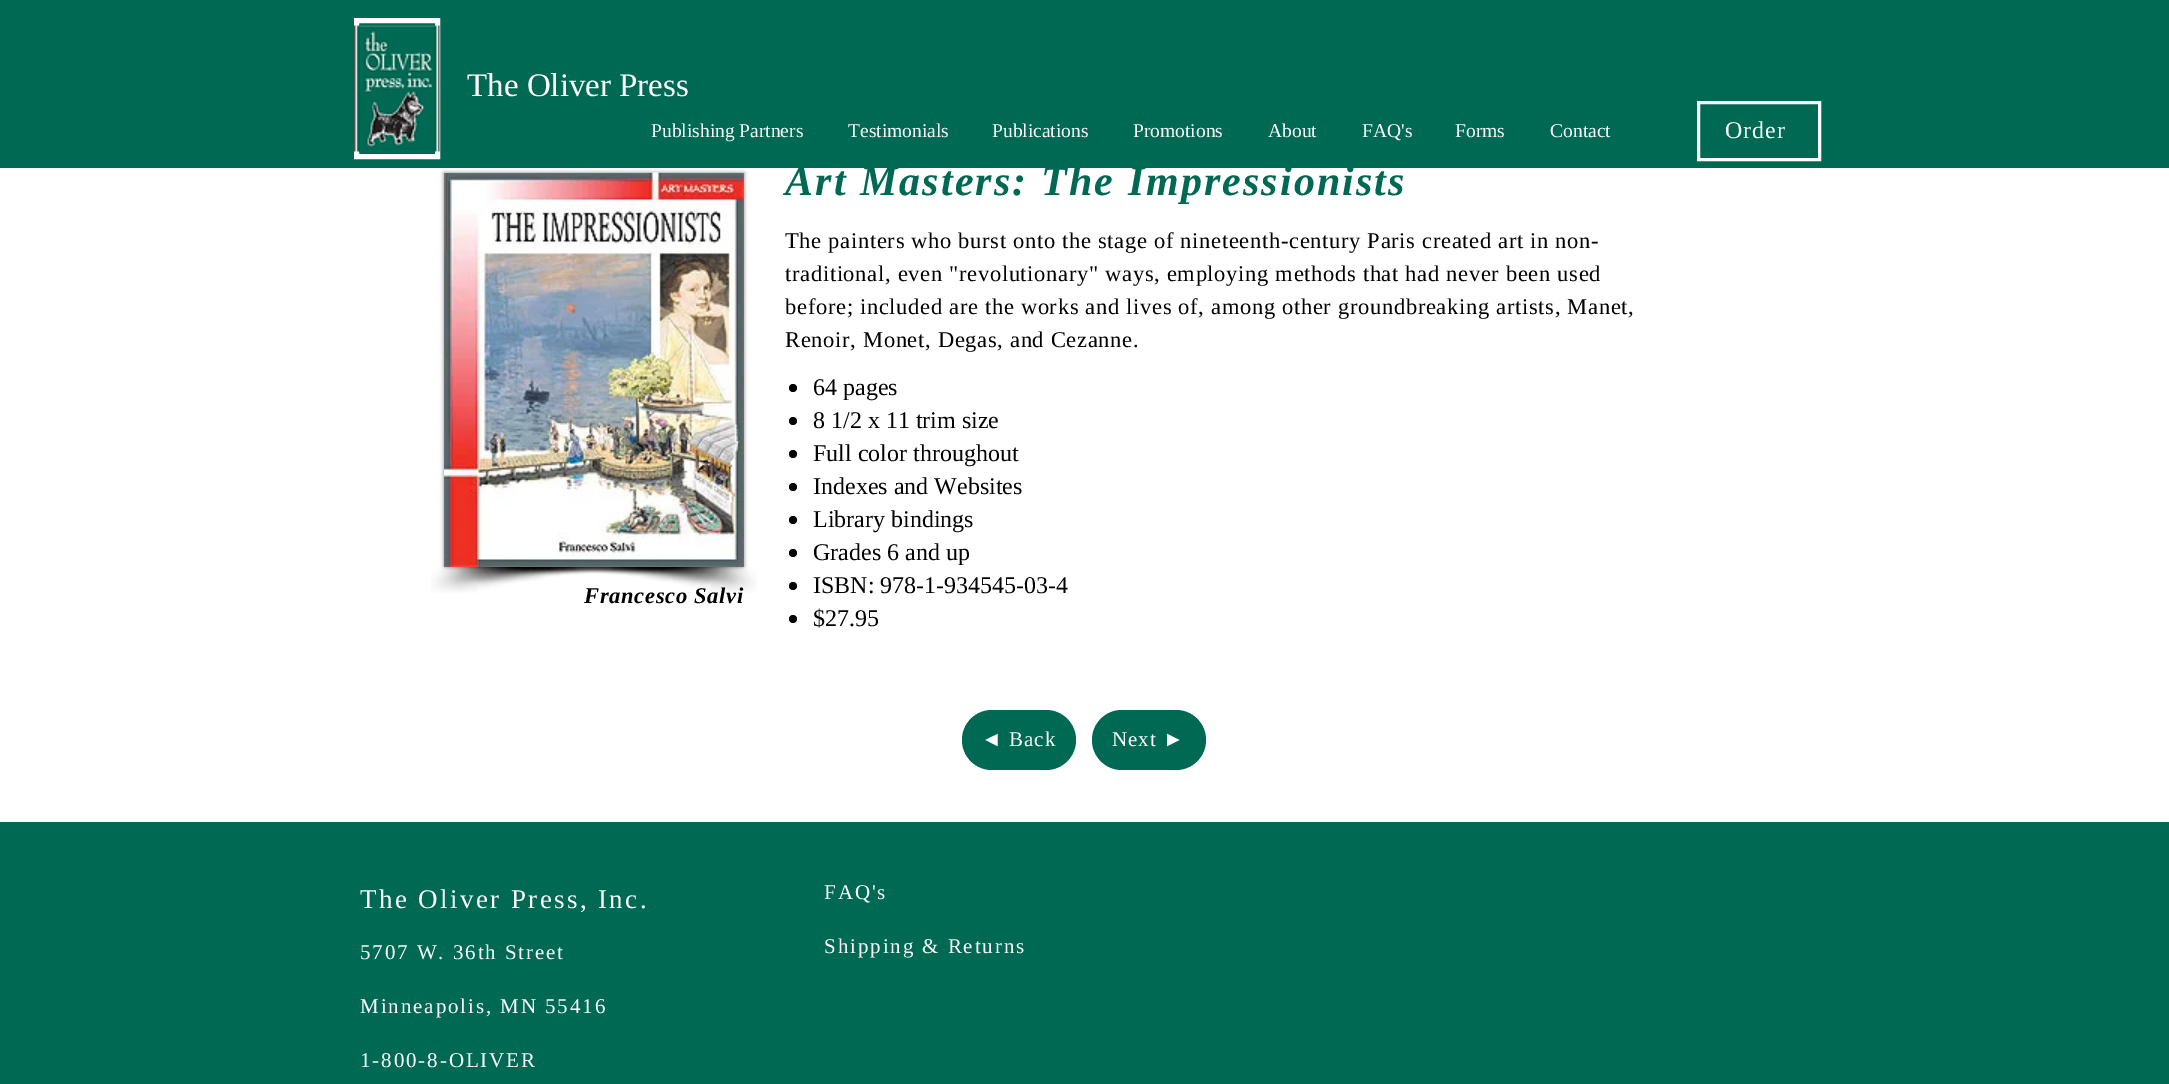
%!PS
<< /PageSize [2169 1084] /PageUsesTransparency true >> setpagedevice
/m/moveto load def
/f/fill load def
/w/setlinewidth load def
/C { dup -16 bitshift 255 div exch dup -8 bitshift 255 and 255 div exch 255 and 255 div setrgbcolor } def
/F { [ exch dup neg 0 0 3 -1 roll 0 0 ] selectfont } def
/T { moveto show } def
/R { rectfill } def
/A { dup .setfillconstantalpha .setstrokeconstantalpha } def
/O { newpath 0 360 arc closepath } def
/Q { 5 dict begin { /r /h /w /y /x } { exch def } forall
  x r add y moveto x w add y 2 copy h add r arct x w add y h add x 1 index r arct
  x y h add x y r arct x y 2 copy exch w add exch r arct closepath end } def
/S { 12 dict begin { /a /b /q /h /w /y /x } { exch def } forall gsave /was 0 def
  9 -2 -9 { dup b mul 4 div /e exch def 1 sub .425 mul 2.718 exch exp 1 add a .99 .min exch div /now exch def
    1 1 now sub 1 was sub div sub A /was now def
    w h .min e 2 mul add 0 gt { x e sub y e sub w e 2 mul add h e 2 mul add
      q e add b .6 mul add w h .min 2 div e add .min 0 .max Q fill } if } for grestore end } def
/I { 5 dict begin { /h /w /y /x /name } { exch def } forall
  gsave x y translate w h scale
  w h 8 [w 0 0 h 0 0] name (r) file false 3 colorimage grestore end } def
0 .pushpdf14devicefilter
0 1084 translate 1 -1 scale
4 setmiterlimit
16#FFFFFF C
0 0 2169 1084 R
16#000000 C
444 173 300 394 0 2 .5 S
16#006953 C
0 0 2169 168 R
16#FFFFFF C
5 w
356.5 20.5 81 136 rectstroke
(1.rgb) 354 25 86 127 I
/LiberationSerif-Regular 33 F
(The Oliver Press) 467 96 T
/LiberationSerif-Regular 19.5 F
(Publishing Partners) 651 137 T
(Testimonials) 848 137 T
(Publications) 992 137 T
(Promotions) 1133 137 T
(About) 1268 137 T
(FAQ's) 1362 137 T
(Forms) 1455 137 T
(Contact) 1550 137 T
3 w
1698.5 102.5 121 57 rectstroke
/LiberationSerif-Regular 24 F
1725 138 m 1 0 (Order) ashow
(2.rgb) 444 172 300 395 I
(3.rgb) 431 567 221 26 I
(4.rgb) 561 567 196 26 I
/LiberationSerif-BoldItalic 42 F
16#006953 C
785 195 m 2.1 0 (Art Masters: The Impressionists) ashow
/LiberationSerif-Regular 22.5 F
16#000000 C
785 248 m .68 0 (The painters who burst onto the stage of nineteenth-century Paris created art in non-) ashow
785 281 m .68 0 (traditional, even "revolutionary" ways, employing methods that had never been used) ashow
785 314 m .68 0 (before; included are the works and lives of, among other groundbreaking artists, Manet,) ashow
785 347 m .68 0 (Renoir, Monet, Degas, and Cezanne.) ashow
/LiberationSerif-BoldItalic 22.5 F
584 603 m .68 0 (Francesco Salvi) ashow
793 388 4 O f
/LiberationSerif-Regular 24 F
(64 pages) 813 395 T
793 421 4 O f
(8 1/2 x 11 trim size) 813 428 T
793 454 4 O f
(Full color throughout) 813 461 T
793 487 4 O f
(Indexes and Websites) 813 494 T
793 520 4 O f
(Library bindings) 813 527 T
793 553 4 O f
(Grades 6 and up) 813 560 T
793 586 4 O f
(ISBN: 978-1-934545-03-4) 813 593 T
793 619 4 O f
($27.95) 813 626 T
16#006953 C
962 710 114 60 30 Q f
/LiberationSerif-Regular 21 F
16#FFFFFF C
981 746 m 1 0 (◄ Back) ashow
16#006953 C
1092 710 114 60 30 Q f
16#FFFFFF C
1112 746 m 1 0 (Next ►) ashow
16#006953 C
0 822 2169 262 R
/LiberationSerif-Regular 27 F
16#FFFFFF C
360 908 m 2.4 0 (The Oliver Press, Inc.) ashow
/LiberationSerif-Regular 21 F
824 899 m 1.9 0 (FAQ's) ashow
824 953 m 1.9 0 (Shipping & Returns) ashow
360 959 m 1.9 0 (5707 W. 36th Street) ashow
360 1013 m 1.9 0 (Minneapolis, MN 55416) ashow
360 1067 m 1.9 0 (1-800-8-OLIVER) ashow
.poppdf14devicefilter showpage
